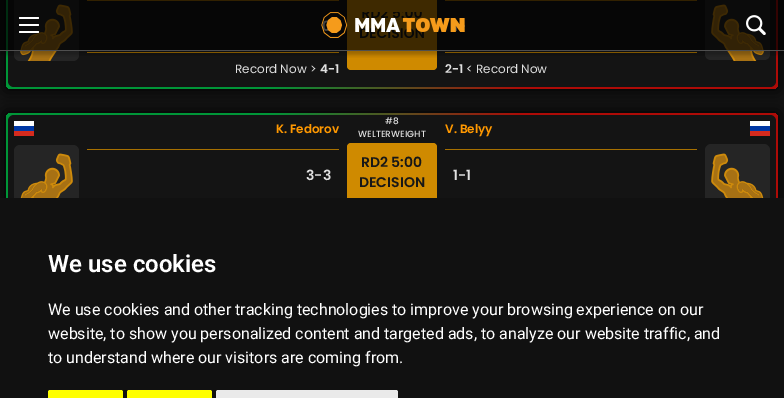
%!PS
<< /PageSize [784 398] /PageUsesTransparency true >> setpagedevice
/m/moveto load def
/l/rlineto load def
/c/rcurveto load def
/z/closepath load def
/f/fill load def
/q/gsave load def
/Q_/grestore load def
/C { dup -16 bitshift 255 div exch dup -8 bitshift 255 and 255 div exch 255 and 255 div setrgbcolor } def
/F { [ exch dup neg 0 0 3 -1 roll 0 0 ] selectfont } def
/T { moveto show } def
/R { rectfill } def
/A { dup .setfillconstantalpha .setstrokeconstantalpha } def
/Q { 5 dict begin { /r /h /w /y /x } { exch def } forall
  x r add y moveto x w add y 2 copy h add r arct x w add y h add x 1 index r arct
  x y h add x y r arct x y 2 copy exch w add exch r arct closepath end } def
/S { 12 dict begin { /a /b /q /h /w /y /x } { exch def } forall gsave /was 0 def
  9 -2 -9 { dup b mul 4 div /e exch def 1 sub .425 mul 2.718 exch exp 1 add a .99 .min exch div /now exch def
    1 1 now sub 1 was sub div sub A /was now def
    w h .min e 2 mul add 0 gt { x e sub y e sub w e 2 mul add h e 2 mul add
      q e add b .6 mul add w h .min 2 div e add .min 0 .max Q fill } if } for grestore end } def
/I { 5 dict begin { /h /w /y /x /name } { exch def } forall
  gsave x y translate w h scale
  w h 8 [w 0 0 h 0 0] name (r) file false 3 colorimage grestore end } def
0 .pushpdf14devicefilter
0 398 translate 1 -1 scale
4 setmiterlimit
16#141414 C
0 0 784 398 R
16#000000 C
6 -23 772 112 0 7.5 1 S
q 6 -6 772 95 6 Q clip newpath
<< /ShadingType 2 /ColorSpace /DeviceRGB /Coords [778 26 6 27] /Extend [true true] /Function << /FunctionType 3 /Domain [0 1] /Functions [<< /FunctionType 2 /Domain [0 1] /C0 [.682 .043 .027] /C1 [.682 .043 .027] /N 1 >> << /FunctionType 2 /Domain [0 1] /C0 [.682 .043 .027] /C1 [0 .588 .22] /N 1 >> << /FunctionType 2 /Domain [0 1] /C0 [0 .588 .22] /C1 [0 .588 .22] /N 1 >>] /Bounds [.33 .66] /Encode [0 1 0 1 0 1] >> >> shfill Q_
16#141414 C
8 -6 768 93 6 Q f
16#252525 C
14 -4 65 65 6 Q f
(3.rgb) 20 4 53 57 I
16#A77000 C
87 0 252 1 R
87 52 252 1 R
16#CF8A00 C
347 -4 90 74 4 Q f
16#A77000 C
445 0 252 1 R
445 52 252 1 R
16#252525 C
764 -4 m -53 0 l -3 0 -6 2 -6 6 c 0 52 l 0 4 3 6 6 6 c 53 0 l 3 0 6 -2 6 -6 c 0 -52 l 0 -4 -3 -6 -6 -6 c z f
(4.rgb) 711 4 53 57 I
q
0 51 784 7 rectclip
16#000000 C
0 4 784 51 0 2 .25 S
Q_
0.7 A
16#000000 C
0 0 784 50 R
1 A
16#4F4F4F C
0 50 784 1 R
16#FFFFFF C
19 24 20 2 1 Q f
19 17 20 2 1 Q f
19 31 20 2 1 Q f
(1.rgb) 321 12 144 26 I
(2.rgb) 746 15 20 20 I
/Poppins-Regular 12 F
16#E0E0E0 C
(Record Now >) 235 73 T
/Poppins-SemiBold 12 F
(4-1) 320 73 T
(2-1) 445 73 T
/Poppins-Regular 12 F
(< Record Now) 466 73 T
16#000000 C
6 113 772 125 0 7.5 1 S
q 6 113 772 125 6 Q clip newpath
<< /ShadingType 2 /ColorSpace /DeviceRGB /Coords [778 175 6 176] /Extend [true true] /Function << /FunctionType 3 /Domain [0 1] /Functions [<< /FunctionType 2 /Domain [0 1] /C0 [.682 .043 .027] /C1 [.682 .043 .027] /N 1 >> << /FunctionType 2 /Domain [0 1] /C0 [.682 .043 .027] /C1 [0 .588 .22] /N 1 >> << /FunctionType 2 /Domain [0 1] /C0 [0 .588 .22] /C1 [0 .588 .22] /N 1 >>] /Bounds [.33 .66] /Encode [0 1 0 1 0 1] >> >> shfill Q_
16#141414 C
8 115 768 121 6 Q f
16#FFFFFF C
14 121 20 5 R
16#0039A6 C
14 126 20 5 R
16#D52B1E C
14 131 20 5 R
/Poppins-SemiBold 12 F
16#FF9800 C
(K. Fedorov) 276 133 T
16#252525 C
14 145 65 65 6 Q f
(5.rgb) 20 153 53 45 I
16#A77000 C
87 149 252 1 R
/Poppins-SemiBold 14 F
16#E0E0E0 C
(3-3) 306 180 T
/Poppins-Medium 9 F
(#8) 385 124 T
(WELTERWEIGHT) 358 137 T
16#CF8A00 C
347 143 90 76 4 Q f
/Poppins-SemiBold 14 F
16#171717 C
(RD2 5:00) 361 167 T
(DECISION) 359 187 T
/Poppins-SemiBold 12 F
16#FF9800 C
(V. Belyy) 445 133 T
16#FFFFFF C
750 121 20 5 R
16#0039A6 C
750 126 20 5 R
16#D52B1E C
750 131 20 5 R
16#A77000 C
445 149 252 1 R
/Poppins-SemiBold 14 F
16#E0E0E0 C
(1-1) 453 180 T
16#252525 C
764 144 m -53 0 l -3 0 -6 3 -6 6 c 0 54 l 0 3 3 6 6 6 c 53 0 l 3 0 6 -3 6 -6 c 0 -54 l 0 -3 -3 -6 -6 -6 c z f
(6.rgb) 711 153 53 45 I
16#111111 C
0 198 784 200 R
/Roboto-SemiBold 24 F
16#FFFFFF C
(We use cookies) 48 272 T
/Roboto-Regular 16 F
(We use cookies and other tracking technologies to improve your browsing experience on our) 48 315 T
(website, to show you personalized content and targeted ads, to analyze our website traffic, and) 48 339 T
(to understand where our visitors are coming from.) 48 363 T
16#FFFF00 C
50 390 m 71 0 l 1 0 2 1 2 2 c 0 6 l -75 0 l 0 -6 l 0 -1 1 -2 2 -2 c z f
129 390 m 81 0 l 1 0 2 1 2 2 c 0 6 l -85 0 l 0 -6 l 0 -1 1 -2 2 -2 c z f
16#EAEAEA C
218 390 m 178 0 l 1 0 2 1 2 2 c 0 6 l -182 0 l 0 -6 l 0 -1 1 -2 2 -2 c z f
.poppdf14devicefilter showpage
